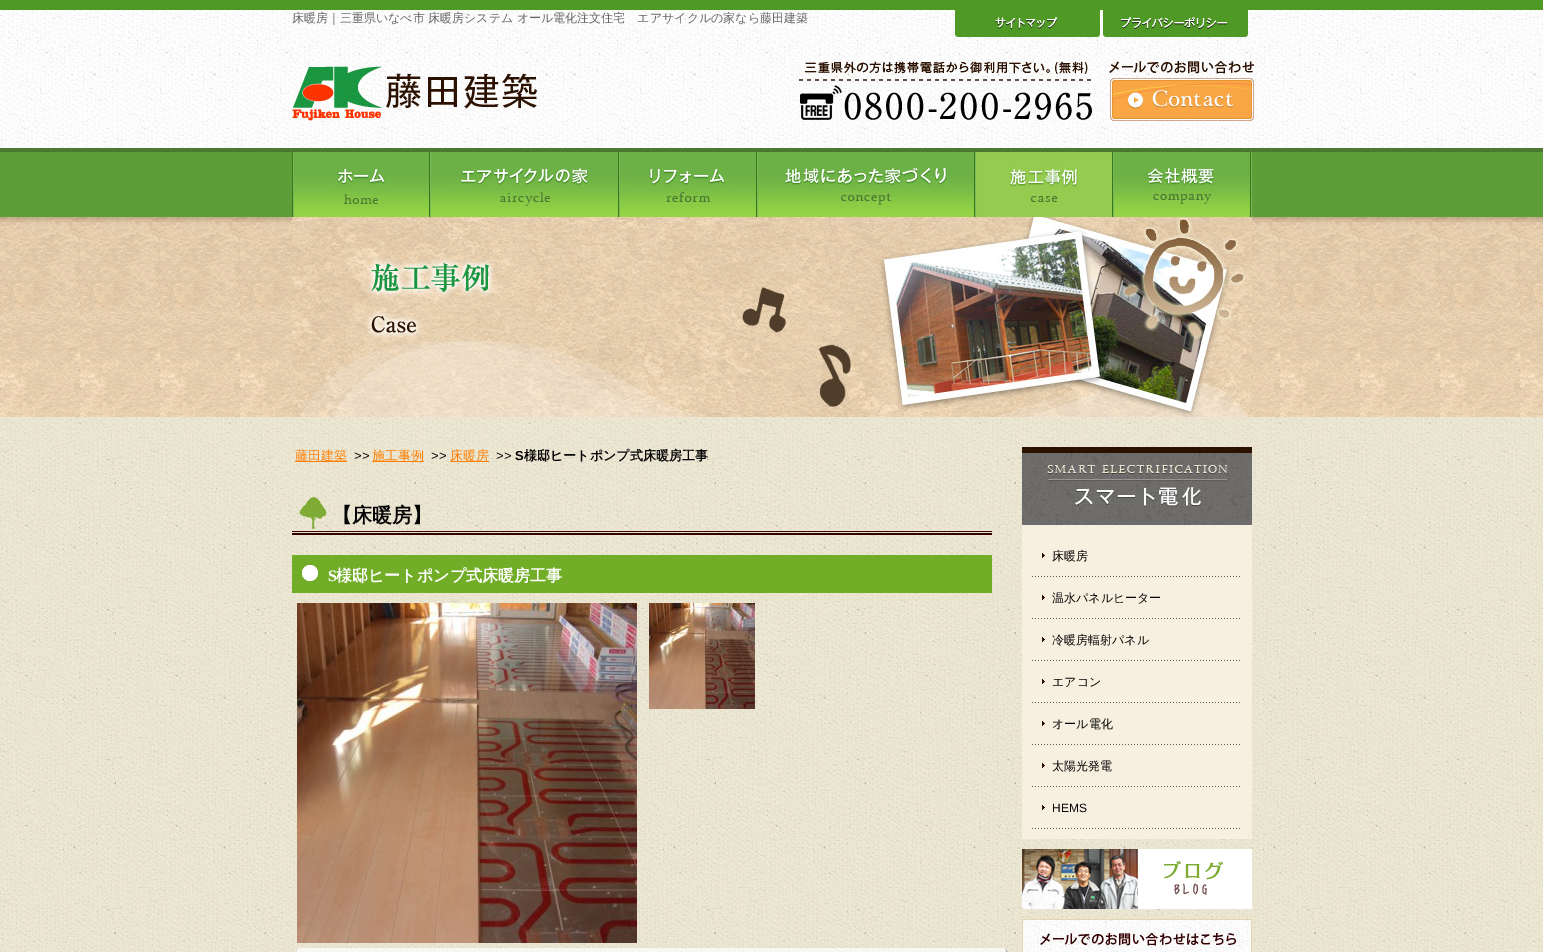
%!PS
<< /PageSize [1543 952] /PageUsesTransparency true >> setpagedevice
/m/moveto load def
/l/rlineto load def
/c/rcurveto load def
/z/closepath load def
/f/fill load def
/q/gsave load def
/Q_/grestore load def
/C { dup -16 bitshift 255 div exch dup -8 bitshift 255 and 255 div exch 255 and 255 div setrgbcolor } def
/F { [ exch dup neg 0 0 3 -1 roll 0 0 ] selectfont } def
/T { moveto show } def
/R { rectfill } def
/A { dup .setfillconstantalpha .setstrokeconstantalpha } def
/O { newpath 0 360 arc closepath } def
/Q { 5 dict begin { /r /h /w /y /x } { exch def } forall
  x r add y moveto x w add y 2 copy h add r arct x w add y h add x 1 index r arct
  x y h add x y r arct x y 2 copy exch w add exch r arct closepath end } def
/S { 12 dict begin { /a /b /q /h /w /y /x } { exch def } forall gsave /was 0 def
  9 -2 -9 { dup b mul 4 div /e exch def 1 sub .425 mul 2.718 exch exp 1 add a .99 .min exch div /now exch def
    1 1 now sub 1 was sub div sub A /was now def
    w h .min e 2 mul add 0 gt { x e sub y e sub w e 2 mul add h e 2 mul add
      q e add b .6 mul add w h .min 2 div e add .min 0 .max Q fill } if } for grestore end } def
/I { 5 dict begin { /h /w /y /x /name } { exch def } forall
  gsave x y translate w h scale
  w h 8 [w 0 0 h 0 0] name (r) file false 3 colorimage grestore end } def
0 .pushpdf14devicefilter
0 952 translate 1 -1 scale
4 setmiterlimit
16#FFFFFF C
0 0 1543 952 R
(1.rgb) 0 417 1543 535 I
(2.rgb) 0 0 1543 217 I
/WenQuanYiZenHei-Medium 12 F
16#666666 C
(床暖房｜三重県いなべ市 床暖房システム オール電化注文住宅　エアサイクルの家なら藤田建築) 292 22 T
(3.rgb) 955 8 145 29 I
(4.rgb) 1103 8 145 29 I
(5.rgb) 292 61 260 60 I
(6.rgb) 799 61 293 60 I
(7.rgb) 1092 61 162 60 I
(8.rgb) 292 148 138 69 I
(9.rgb) 430 148 189 69 I
(10.rgb) 619 148 138 69 I
(11.rgb) 757 148 217 69 I
(12.rgb) 974 148 138 69 I
(13.rgb) 1112 148 140 69 I
(14.rgb) 0 217 1543 200 I
(15.rgb) 292 217 960 200 I
16#FF7E00 C
295 461 52 1 R
/WenQuanYiZenHei-Medium 13 F
(藤田建築) 295 460 T
/LiberationSans-Regular 13 F
16#050505 C
(>>) 354 460 T
16#FF7E00 C
372 461 52 1 R
/WenQuanYiZenHei-Medium 13 F
(施工事例) 372 460 T
/LiberationSans-Regular 13 F
16#050505 C
(>>) 431 460 T
16#FF7E00 C
450 461 39 1 R
/WenQuanYiZenHei-Medium 13 F
(床暖房) 450 460 T
/LiberationSans-Regular 13 F
16#050505 C
(>>) 496 460 T
/LiberationSans-Bold 13 F
(S) 515 460 T
/WenQuanYiZenHei-Bold 13 F
(様邸ヒートポンプ式床暖房工事) 524 460 T
(16.rgb) 292 497 700 38 I
/WenQuanYiZenHei-Bold 20 F
(【床暖房】) 332 522 T
16#72AD28 C
292 555 700 38 R
16#FFFFFF C
310 573 8 O f
/LiberationSerif-Bold 16 F
(S) 328 581 T
/WenQuanYiZenHei-Bold 16 F
(様邸ヒートポンプ式床暖房工事) 336 581 T
(17.rgb) 297 603 340 340 I
(18.rgb) 649 603 106 106 I
q
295 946 m 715 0 l 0 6 l -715 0 l z 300 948 m 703 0 l 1.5 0 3 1.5 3 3 c 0 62 l 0 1.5 -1.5 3 -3 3 c -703 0 l -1.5 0 -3 -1.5 -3 -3 c 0 -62 l 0 -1.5 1.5 -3 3 -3 c z eoclip newpath
16#999999 C
298 949 709 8 3 .5 1 S
Q_
0.7 A
297 948 709 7 3 Q f
1 A
(19.rgb) 1022 447 230 78 I
16#F7EFDF C
1022 525 230 314 R
(20.rgb) 1032 576 208 1 I
(21.rgb) 1042 553 3 5 I
/WenQuanYiZenHei-Medium 12 F
16#050505 C
(床暖房) 1052 560 T
(20.rgb) 1032 618 208 1 I
(21.rgb) 1042 595 3 5 I
(温水パネルヒーター) 1052 602 T
(20.rgb) 1032 660 208 1 I
(21.rgb) 1042 637 3 5 I
(冷暖房輻射パネル) 1052 644 T
(20.rgb) 1032 702 208 1 I
(21.rgb) 1042 679 3 5 I
(エアコン) 1052 686 T
(20.rgb) 1032 744 208 1 I
(21.rgb) 1042 721 3 5 I
(オール電化) 1052 728 T
(20.rgb) 1032 786 208 1 I
(21.rgb) 1042 763 3 5 I
(太陽光発電) 1052 770 T
(20.rgb) 1032 828 208 1 I
(21.rgb) 1042 805 3 5 I
/LiberationSans-Regular 12 F
(HEMS) 1052 812 T
(22.rgb) 1022 849 230 60 I
(23.rgb) 1022 919 230 33 I
.poppdf14devicefilter showpage
